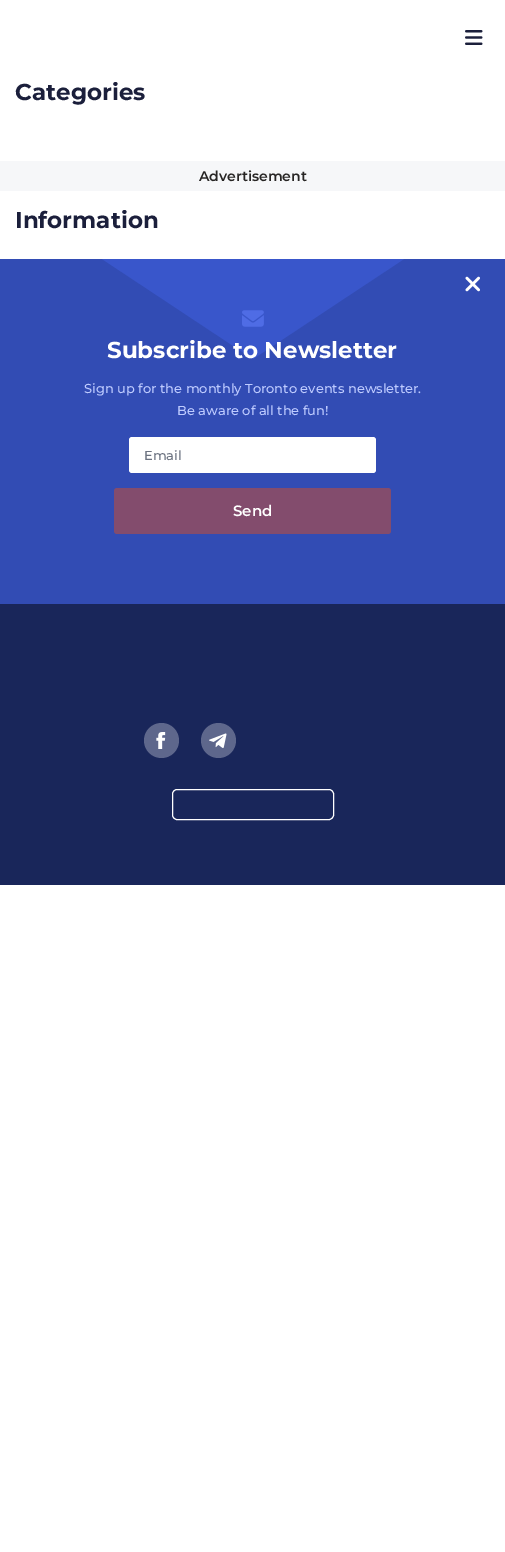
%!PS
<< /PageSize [505 1552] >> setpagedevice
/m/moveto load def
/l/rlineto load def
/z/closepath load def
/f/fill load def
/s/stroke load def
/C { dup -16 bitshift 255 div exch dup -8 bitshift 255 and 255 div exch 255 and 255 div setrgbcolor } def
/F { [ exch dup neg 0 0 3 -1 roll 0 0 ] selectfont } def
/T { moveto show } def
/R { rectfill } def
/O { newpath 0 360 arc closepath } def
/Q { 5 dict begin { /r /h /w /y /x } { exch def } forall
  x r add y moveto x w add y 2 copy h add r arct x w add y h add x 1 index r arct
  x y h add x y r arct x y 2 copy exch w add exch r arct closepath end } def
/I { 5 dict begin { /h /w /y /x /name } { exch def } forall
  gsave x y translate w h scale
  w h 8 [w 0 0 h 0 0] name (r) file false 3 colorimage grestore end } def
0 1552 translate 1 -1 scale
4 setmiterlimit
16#FFFFFF C
0 0 505 1552 R
(1.rgb) 465 30 18 15 I
/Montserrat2-Thin 23 F
16#1B1F3B C
(Categories) 15 100 T
16#F6F7F9 C
0 161 505 30 R
/Montserrat-Thin 14 F
16#272524 C
(Advertisement) 199 181 T
/Montserrat2-Thin 23 F
16#1B1F3B C
(Information) 15 228 T
16#324CB4 C
0 259 505 345 R
16#3956CB C
102 259 m 302 0 l -151 100 l z f
(2.rgb) 465 276 15 16 I
(3.rgb) 242 310 22 17 I
16#FFFFFF C
(Subscribe to Newsletter) 107 358 T
/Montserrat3-Thin 13 F
16#BECBFF C
(Sign up for the monthly Toronto events newsletter.) 84 393 T
(Be aware of all the fun!) 177 415 T
16#FFFFFF C
129 437 247 36 3 Q f
16#6B7280 C
(Email) 144 460 T
16#834C6D C
114 488 277 46 3 Q f
/Montserrat-Thin 15 F
16#FFFFFF C
(Send) 233 516 T
16#19265A C
0 604 505 281 R
16#5E678C C
161.5 740.5 17.5 O f
(4.rgb) 156 732 10 17 I
218.5 740.5 17.5 O f
(5.rgb) 209 733 18 15 I
16#FFFFFF C
172.5 789.5 161 30 4.5 Q s
showpage
